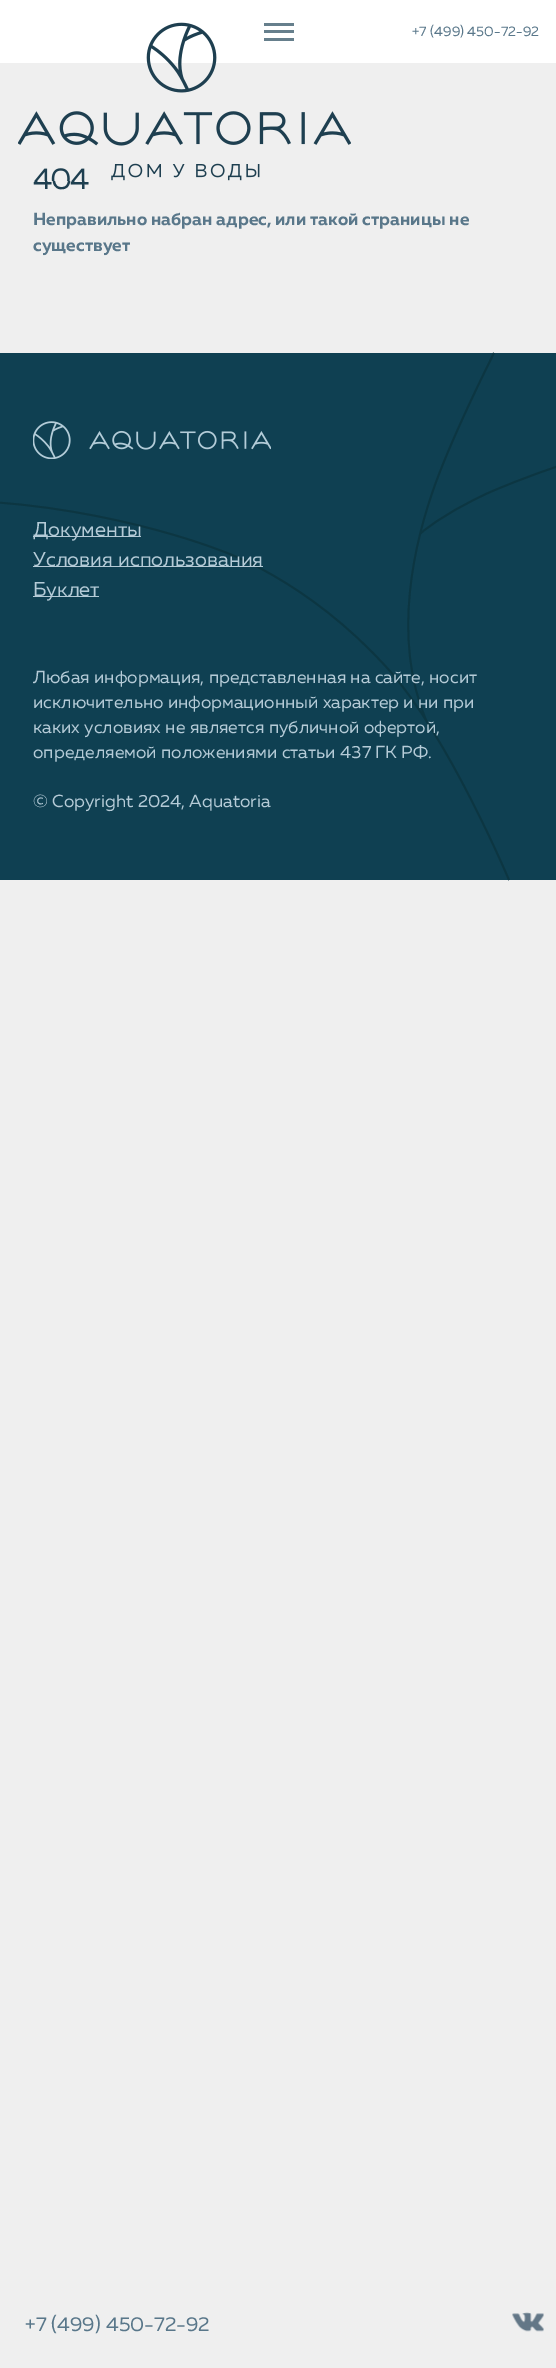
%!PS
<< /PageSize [556 2368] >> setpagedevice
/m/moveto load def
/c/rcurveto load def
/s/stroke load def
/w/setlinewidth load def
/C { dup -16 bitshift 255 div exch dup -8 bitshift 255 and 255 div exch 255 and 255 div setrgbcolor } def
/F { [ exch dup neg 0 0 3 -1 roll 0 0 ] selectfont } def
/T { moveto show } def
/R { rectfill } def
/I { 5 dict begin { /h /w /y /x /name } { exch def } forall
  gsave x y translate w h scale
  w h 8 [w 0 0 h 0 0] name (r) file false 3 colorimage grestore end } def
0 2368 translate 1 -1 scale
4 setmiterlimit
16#EFEFEF C
0 0 556 2368 R
16#FFFFFF C
0 0 556 63 R
16#667F8C C
264 23 30 3 R
264 30 30 3 R
264 38 30 3 R
/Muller-Regular 30 F
16#1E3F50 C
33 189 m -1.5 0 (404) ashow
(1.rgb) 18 22 333 159 I
/Muller-Regular 13.75 F
16#59778A C
(+7 \(499\) 450-72-92) 412 36 T
/Muller-Regular 20 F
(+7 \(499\) 450-72-92) 25 2331 T
(2.rgb) 512 2312 32 20 I
/Muller-Bold 17.5 F
(Неправильно набран адрес, или такой страницы не) 33 225 T
(существует) 33 251 T
16#0F4052 C
0 353 556 527 R
16#0C3642 C
1.8 w
420.5 533.5 m 19 -16.5 50.5 -33 71 -42 c 64 -27.5 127.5 -44 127.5 -44 c 426.5 721 m -35.5 -82.5 -12 -180 9 -237.5 c 19 -52.5 58.5 -130.5 58.5 -130.5 c 509 880 m 0 0 -60.5 -143.5 -120.5 -210.5 c -81.5 -91 -168 -119 -168 -119 c 0 0 -125 -50.5 -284 -50.5 c s
(3.rgb) 33 421 238 38 I
16#B5CBD7 C
33 536 108 1 R
/Muller-Regular 20 F
(Документы) 33 536 T
33 566 230 1 R
(Условия использования) 33 566 T
33 596 66 1 R
(Буклет) 33 596 T
/Muller-Regular 17.5 F
(Любая информация, представленная на сайте, носит) 33 683 T
(исключительно информационный характер и ни при) 33 708 T
(каких условиях не является публичной офертой,) 33 733 T
(определяемой положениями статьи 437 ГК РФ.) 33 758 T
(© Сopyright 2024, Aquatoria) 33 807 T
showpage
